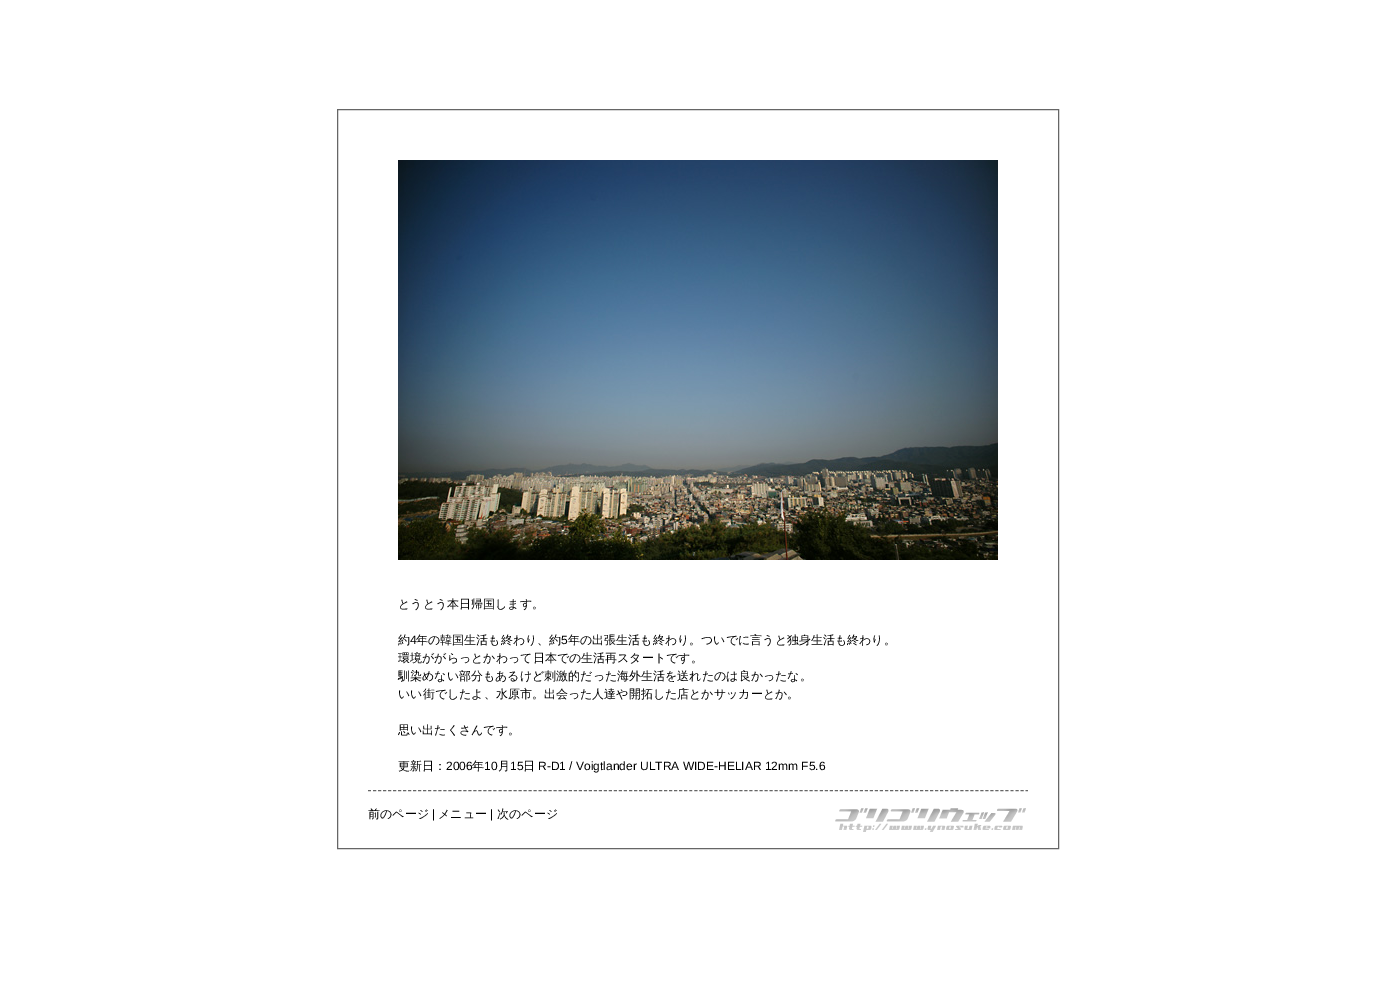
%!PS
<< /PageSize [1395 987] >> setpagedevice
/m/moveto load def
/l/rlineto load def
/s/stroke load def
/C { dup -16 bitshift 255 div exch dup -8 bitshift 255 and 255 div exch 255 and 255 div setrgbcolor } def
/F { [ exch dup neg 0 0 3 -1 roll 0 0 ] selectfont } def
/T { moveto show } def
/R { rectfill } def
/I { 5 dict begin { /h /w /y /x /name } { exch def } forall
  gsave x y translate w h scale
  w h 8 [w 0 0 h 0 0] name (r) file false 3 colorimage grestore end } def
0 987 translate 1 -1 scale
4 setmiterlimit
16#FFFFFF C
0 0 1395 987 R
16#666666 C
337.5 109.5 721 739 rectstroke
(1.rgb) 398 160 600 400 I
/WenQuanYiZenHei-Medium 12 F
16#000000 C
(とうとう本日帰国します。) 398 608 T
(約) 398 644 T
/LiberationSans-Regular 12 F
(4) 410 644 T
/WenQuanYiZenHei-Medium 12 F
(年の韓国生活も終わり、約) 416 644 T
/LiberationSans-Regular 12 F
(5) 561 644 T
/WenQuanYiZenHei-Medium 12 F
(年の出張生活も終わり。ついでに言うと独身生活も終わり。) 568 644 T
(環境ががらっとかわって日本での生活再スタートです。) 398 662 T
(馴染めない部分もあるけど刺激的だった海外生活を送れたのは良かったな。) 398 680 T
(いい街でしたよ、水原市。出会った人達や開拓した店とかサッカーとか。) 398 698 T
(思い出たくさんです。) 398 734 T
(更新日：) 398 770 T
/LiberationSans-Regular 12 F
(2006) 446 770 T
/WenQuanYiZenHei-Medium 12 F
(年) 472 770 T
/LiberationSans-Regular 12 F
(10) 484 770 T
/WenQuanYiZenHei-Medium 12 F
(月) 498 770 T
/LiberationSans-Regular 12 F
(15) 510 770 T
/WenQuanYiZenHei-Medium 12 F
(日) 523 770 T
/LiberationSans-Regular 12 F
(R-D1 / Voigtlander ULTRA WIDE-HELIAR 12mm F5.6) 538 770 T
16#666666 C
[3 2.02] 0 setdash
368 790.5 m 660 0 l s
/WenQuanYiZenHei-Medium 12 F
16#000000 C
(前のページ) 368 818 T
/LiberationSans-Regular 12 F
(|) 432 818 T
/WenQuanYiZenHei-Medium 12 F
(メニュー) 438 818 T
/LiberationSans-Regular 12 F
(|) 490 818 T
/WenQuanYiZenHei-Medium 12 F
(次のページ) 497 818 T
(2.rgb) 835 808 191 24 I
showpage
